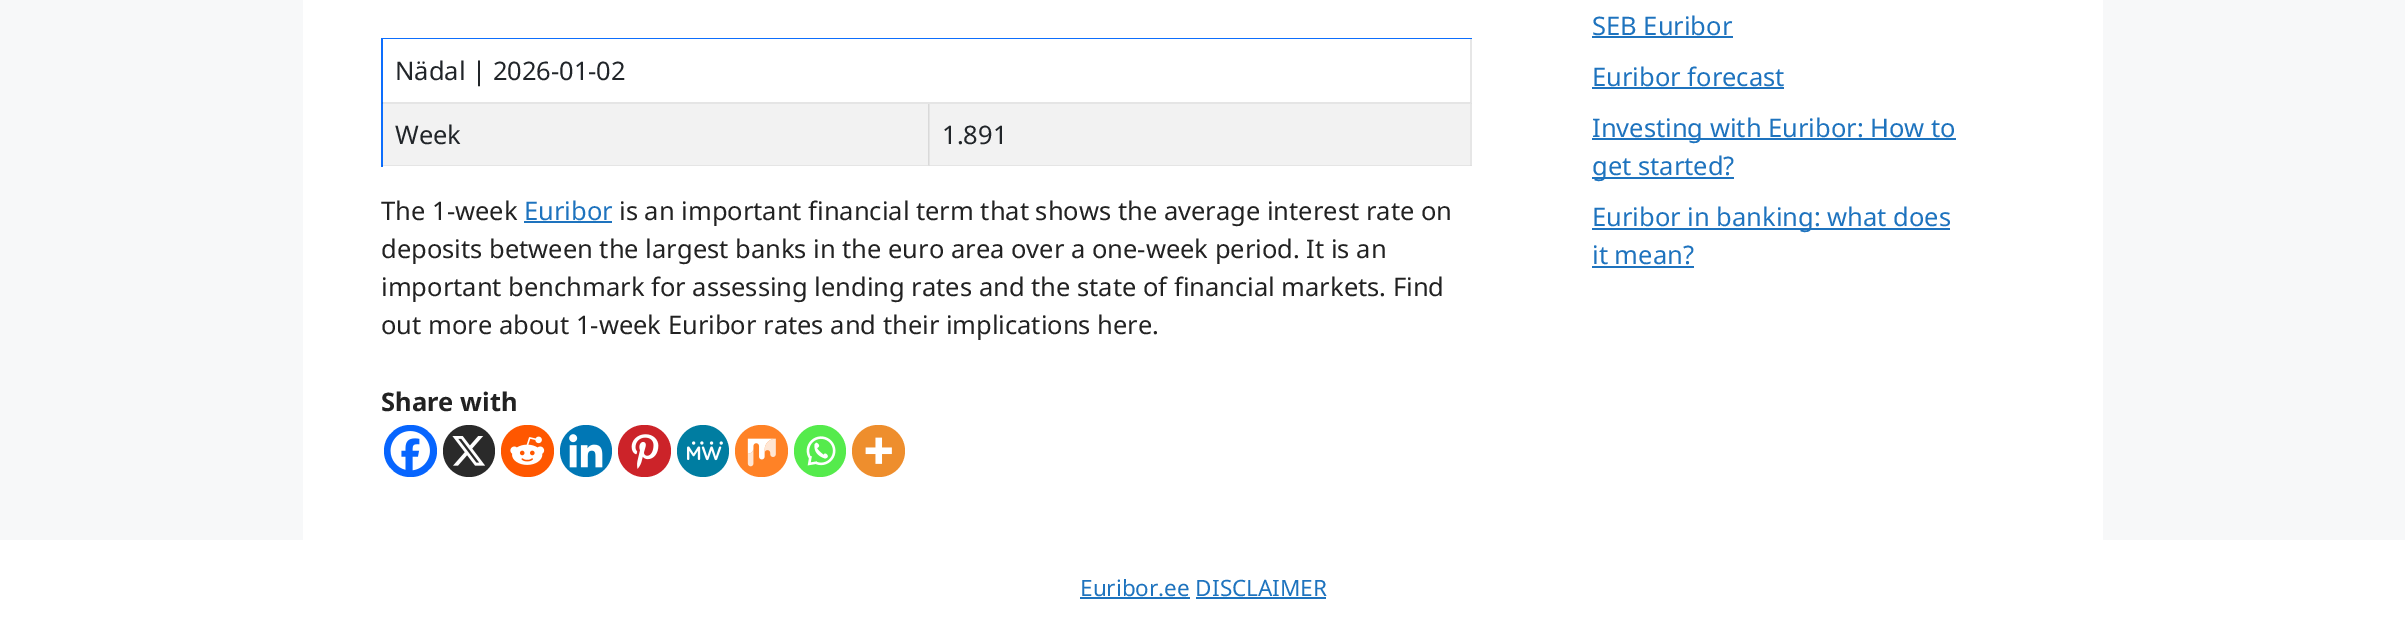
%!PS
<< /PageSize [2405 634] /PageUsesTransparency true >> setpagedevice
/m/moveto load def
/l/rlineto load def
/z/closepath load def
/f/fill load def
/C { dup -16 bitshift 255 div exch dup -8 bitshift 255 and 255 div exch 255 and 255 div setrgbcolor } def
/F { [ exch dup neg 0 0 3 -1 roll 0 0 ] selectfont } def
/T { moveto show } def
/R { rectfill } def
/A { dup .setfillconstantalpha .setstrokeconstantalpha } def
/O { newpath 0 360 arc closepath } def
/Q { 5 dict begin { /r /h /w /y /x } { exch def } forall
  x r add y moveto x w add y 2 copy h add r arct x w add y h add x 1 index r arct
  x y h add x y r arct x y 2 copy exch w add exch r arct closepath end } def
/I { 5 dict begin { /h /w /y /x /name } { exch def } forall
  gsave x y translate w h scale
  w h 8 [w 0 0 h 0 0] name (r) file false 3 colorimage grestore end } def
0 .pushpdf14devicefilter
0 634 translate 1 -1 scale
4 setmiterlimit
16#F7F8F9 C
0 0 2405 634 R
16#FFFFFF C
303 0 1800 540 R
16#0D6EFD C
381 38 1091 1 R
381 38 2 129 R
16#E6E6E6 C
1472 39 m 0 65 l -2 -2 l 0 -63 l z f
0.1 A
16#000000 C
1472 104 m -1090 0 l 0 -2 l 1088 0 l z f
/NotoSans-Regular 25.5 F
1 A
16#212529 C
(Nädal | 2026-01-02) 395 80 T
16#F2F2F2 C
383 104 546 61 R
0.1 A
16#000000 C
930 104 m 0 62 l -2 -1 l 0 -61 l z f
930 166 m -548 0 l 0 -1 l 546 0 l z f
1 A
16#212529 C
(Week) 395 144 T
16#F2F2F2 C
930 104 540 61 R
16#E6E6E6 C
1472 104 m 0 62 l -2 -1 l 0 -61 l z f
0.1 A
16#000000 C
1472 166 m -542 0 l 0 -1 l 540 0 l z f
1 A
16#212529 C
(1.891) 942 144 T
16#222222 C
(The 1-week) 381 220 T
16#1E73BE C
(Euribor) 524 220 T
524 221 88 2 R
16#222222 C
(is an important financial term that shows the average interest rate on) 619 220 T
(deposits between the largest banks in the euro area over a one-week period. It is an) 381 258 T
(important benchmark for assessing lending rates and the state of financial markets. Find) 381 296 T
(out more about 1-week Euribor rates and their implications here.) 381 334 T
/NotoSans-Bold 25.5 F
(Share with) 381 411 T
16#0765FE C
384 425 53 52 26 Q f
(1.rgb) 390 431 40 40 I
16#2A2A2A C
469 451 26 O f
(2.rgb) 452 436 33 30 I
16#FF5700 C
501 425 53 52 26 Q f
(3.rgb) 510 436 35 29 I
16#0077B5 C
586 451 26 O f
(4.rgb) 569 434 34 34 I
16#CC2329 C
618 425 53 52 26 Q f
(5.rgb) 631 434 28 35 I
16#007DA1 C
703 451 26 O f
(6.rgb) 687 441 36 20 I
16#FF8226 C
735 425 53 52 26 Q f
(7.rgb) 747 438 29 29 I
16#55EB4C C
820 451 26 O f
(8.rgb) 806 436 30 30 I
16#EE8E2D C
852 425 53 52 26 Q f
(9.rgb) 865 437 27 27 I
/NotoSans-Regular 25.5 F
16#1E73BE C
(SEB Euribor) 1592 35 T
1592 36 141 2 R
(Euribor forecast) 1592 86 T
1592 87 192 2 R
1592 138 364 2 R
(Investing with Euribor: How to) 1592 137 T
1592 177 142 2 R
(get started?) 1592 175 T
1592 228 358 2 R
(Euribor in banking: what does) 1592 226 T
(it mean?) 1592 264 T
1592 266 102 2 R
16#FFFFFF C
0 540 2405 94 R
/NotoSans-Regular 22.5 F
16#1E73BE C
(Euribor.ee DISCLAIMER) 1080 596 T
1080 597 110 2 R
1196 597 130 2 R
.poppdf14devicefilter showpage
